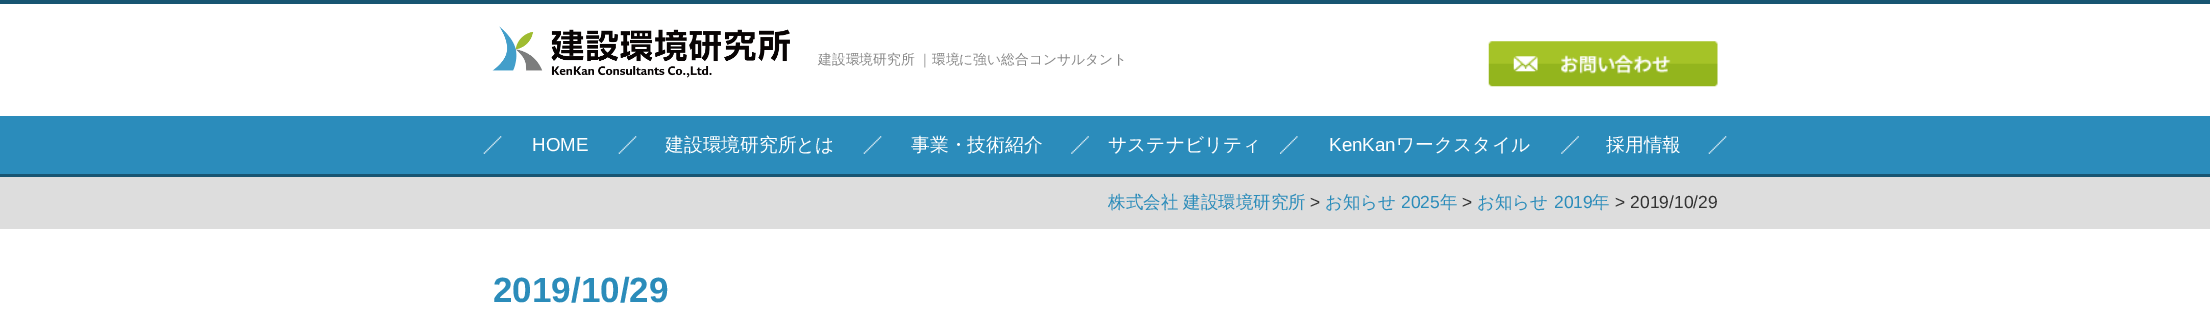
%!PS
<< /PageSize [2210 333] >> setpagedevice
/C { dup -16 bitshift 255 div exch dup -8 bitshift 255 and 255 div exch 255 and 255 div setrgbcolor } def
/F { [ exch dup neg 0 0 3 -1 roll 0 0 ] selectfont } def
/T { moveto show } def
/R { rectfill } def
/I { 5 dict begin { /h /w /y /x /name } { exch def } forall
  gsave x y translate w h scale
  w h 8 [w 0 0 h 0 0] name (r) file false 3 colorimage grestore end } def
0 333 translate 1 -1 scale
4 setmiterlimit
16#FFFFFF C
0 0 2210 333 R
16#185572 C
0 0 2210 4 R
(1.rgb) 492 26 298 52 I
/WenQuanYiZenHei-Medium 13.75 F
16#888888 C
(建設環境研究所 ｜環境に強い総合コンサルタント) 818 64 T
(2.rgb) 1488 41 230 46 I
16#2B8CBB C
0 116 2210 58 R
16#185572 C
0 174 2210 3 R
(3.rgb) 483 136 19 18 I
/LiberationSans-Regular 18.75 F
16#FFFFFF C
(HOME) 532 151 T
(3.rgb) 618 136 19 18 I
/WenQuanYiZenHei-Medium 18.75 F
(建設環境研究所とは) 665 151 T
(4.rgb) 863 136 19 18 I
(事業・技術紹介) 911 151 T
(5.rgb) 1071 136 18 18 I
(サステナビリティ) 1108 151 T
(6.rgb) 1280 136 18 18 I
/LiberationSans-Regular 18.75 F
(KenKan) 1329 151 T
/WenQuanYiZenHei-Medium 18.75 F
(ワークスタイル) 1396 151 T
(5.rgb) 1561 136 18 18 I
(採用情報) 1606 151 T
(3.rgb) 1708 136 19 18 I
16#DDDDDD C
0 177 2210 52 R
/WenQuanYiZenHei-Medium 17.5 F
16#2B8CBA C
(株式会社 建設環境研究所) 1108 208 T
/LiberationSans-Regular 17.5 F
16#333333 C
(>) 1310 208 T
/WenQuanYiZenHei-Medium 17.5 F
16#2B8CBA C
(お知らせ) 1325 208 T
/LiberationSans-Regular 17.5 F
(2025) 1401 208 T
/WenQuanYiZenHei-Medium 17.5 F
(年) 1440 208 T
/LiberationSans-Regular 17.5 F
16#333333 C
(>) 1462 208 T
/WenQuanYiZenHei-Medium 17.5 F
16#2B8CBA C
(お知らせ) 1477 208 T
/LiberationSans-Regular 17.5 F
(2019) 1554 208 T
/WenQuanYiZenHei-Medium 17.5 F
(年) 1592 208 T
/LiberationSans-Regular 17.5 F
16#333333 C
(> 2019/10/29) 1615 208 T
/LiberationSans-Bold 35 F
16#2B8CBA C
(2019/10/29) 493 302 T
showpage
